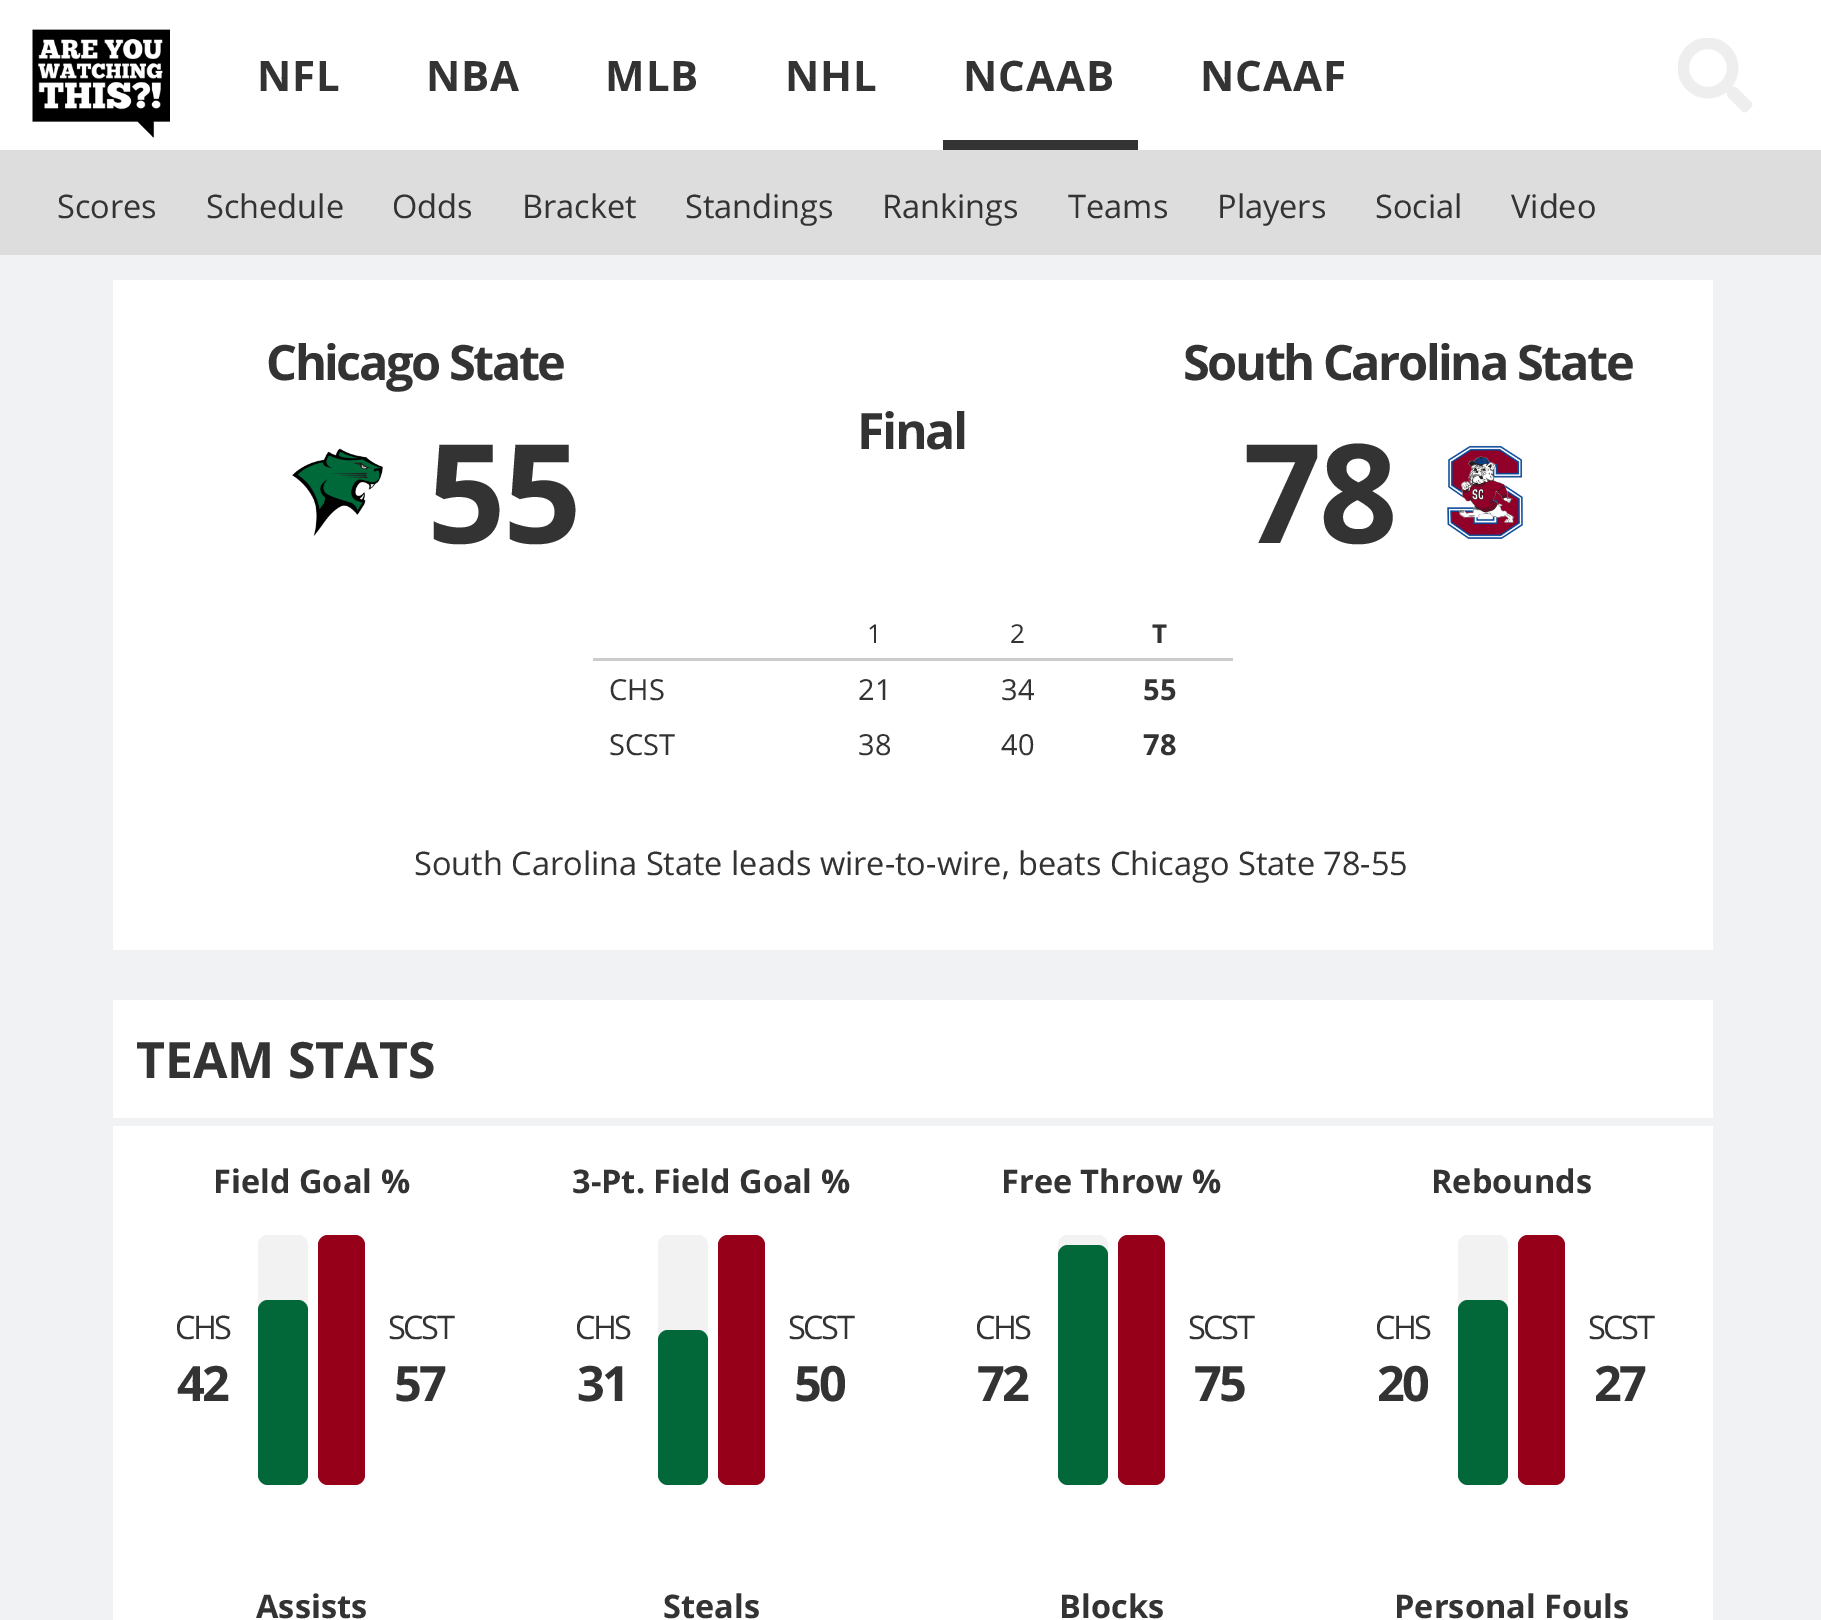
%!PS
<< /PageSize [1821 1620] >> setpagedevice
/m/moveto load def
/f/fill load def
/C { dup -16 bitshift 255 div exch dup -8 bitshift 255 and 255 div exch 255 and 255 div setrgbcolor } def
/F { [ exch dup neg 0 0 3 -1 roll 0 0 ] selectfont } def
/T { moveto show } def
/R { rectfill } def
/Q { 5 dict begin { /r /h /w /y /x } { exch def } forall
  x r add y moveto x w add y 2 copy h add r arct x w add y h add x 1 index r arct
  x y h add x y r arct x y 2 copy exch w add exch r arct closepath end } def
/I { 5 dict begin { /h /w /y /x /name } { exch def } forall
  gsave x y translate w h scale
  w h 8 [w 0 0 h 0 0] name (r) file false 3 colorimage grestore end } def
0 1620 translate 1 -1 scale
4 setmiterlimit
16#F1F2F3 C
0 0 1821 1620 R
16#FFFFFF C
0 0 1821 150 R
(1.rgb) 32 29 138 109 I
/OpenSans-Bold 42 F
16#333333 C
257 91 m 1 0 (NFL) ashow
426 91 m 1 0 (NBA) ashow
605 91 m 1 0 (MLB) ashow
785 91 m 1 0 (NHL) ashow
943 140 195 10 R
963 91 m 1 0 (NCAAB) ashow
1200 91 m 1 0 (NCAAF) ashow
(2.rgb) 1678 38 75 75 I
16#DDDDDD C
0 150 1821 105 R
/OpenSans-Regular 32.5 F
16#333333 C
(Scores) 57 218 T
(Schedule) 206 218 T
(Odds) 392 218 T
(Bracket) 522 218 T
(Standings) 685 218 T
(Rankings) 882 218 T
(Teams) 1068 218 T
(Players) 1217 218 T
(Social) 1375 218 T
(Video) 1511 218 T
16#FFFFFF C
113 280 1600 670 R
/OpenSans-Bold 48.75 F
16#333333 C
266 380 m -2.5 0 (Chicago State) ashow
(3.rgb) 292 448 91 88 I
/OpenSans-Bold 138 F
427 543 m -2.5 0 (55) ashow
/OpenSans-Bold 50 F
857 449 m -2.5 0 (Final) ashow
/OpenSans-Bold 48.75 F
1183 380 m -2.5 0 (South Carolina State) ashow
/OpenSans-Bold 138 F
1243 543 m -2.5 0 (78) ashow
(4.rgb) 1447 445 76 94 I
/OpenSans-Regular 26 F
(1) 867 643 T
(2) 1010 643 T
/OpenSans-Bold 26 F
(T) 1152 643 T
16#CCCCCC C
593 658 640 3 R
/OpenSans-Regular 29 F
16#333333 C
(CHS) 609 700 T
(21) 858 700 T
(34) 1001 700 T
/OpenSans-Bold 29 F
(55) 1143 700 T
/OpenSans-Regular 29 F
(SCST) 609 755 T
(38) 858 755 T
(40) 1001 755 T
/OpenSans-Bold 29 F
(78) 1143 755 T
/OpenSans-Regular 32.5 F
(South Carolina State leads wire-to-wire, beats Chicago State 78-55) 414 875 T
16#FFFFFF C
113 1000 1600 620 R
16#F1F2F3 C
113 1118 1600 8 R
/OpenSans-Bold 50 F
16#333333 C
(TEAM STATS) 136 1078 T
/OpenSans-Bold 32.5 F
(Field Goal %) 213 1193 T
/OpenSans-Regular 32.5 F
175 1339 m -2.5 0 (CHS) ashow
/OpenSans-Bold 48.75 F
177 1401 m -2.5 0 (42) ashow
16#F2F2F2 C
258 1235 50 250 10 Q f
16#026839 C
258 1300 50 185 10 Q f
16#960018 C
318 1235 47 250 10 Q f
/OpenSans-Regular 32.5 F
16#333333 C
388 1339 m -2.5 0 (SCST) ashow
/OpenSans-Bold 48.75 F
394 1401 m -2.5 0 (57) ashow
/OpenSans-Bold 32.5 F
(3-Pt. Field Goal %) 572 1193 T
/OpenSans-Regular 32.5 F
575 1339 m -2.5 0 (CHS) ashow
/OpenSans-Bold 48.75 F
577 1401 m -2.5 0 (31) ashow
16#F2F2F2 C
658 1235 50 250 10 Q f
16#026839 C
658 1330 50 155 10 Q f
16#960018 C
718 1235 47 250 10 Q f
/OpenSans-Regular 32.5 F
16#333333 C
788 1339 m -2.5 0 (SCST) ashow
/OpenSans-Bold 48.75 F
794 1401 m -2.5 0 (50) ashow
/OpenSans-Bold 32.5 F
(Free Throw %) 1001 1193 T
/OpenSans-Regular 32.5 F
975 1339 m -2.5 0 (CHS) ashow
/OpenSans-Bold 48.75 F
977 1401 m -2.5 0 (72) ashow
16#F2F2F2 C
1058 1235 50 250 10 Q f
16#026839 C
1058 1245 50 240 10 Q f
16#960018 C
1118 1235 47 250 10 Q f
/OpenSans-Regular 32.5 F
16#333333 C
1188 1339 m -2.5 0 (SCST) ashow
/OpenSans-Bold 48.75 F
1194 1401 m -2.5 0 (75) ashow
/OpenSans-Bold 32.5 F
(Rebounds) 1431 1193 T
/OpenSans-Regular 32.5 F
1375 1339 m -2.5 0 (CHS) ashow
/OpenSans-Bold 48.75 F
1377 1401 m -2.5 0 (20) ashow
16#F2F2F2 C
1458 1235 50 250 10 Q f
16#026839 C
1458 1300 50 185 10 Q f
16#960018 C
1518 1235 47 250 10 Q f
/OpenSans-Regular 32.5 F
16#333333 C
1588 1339 m -2.5 0 (SCST) ashow
/OpenSans-Bold 48.75 F
1594 1401 m -2.5 0 (27) ashow
/OpenSans-Bold 32.5 F
(Assists) 256 1618 T
(Steals) 663 1618 T
(Blocks) 1059 1618 T
(Personal Fouls) 1394 1618 T
showpage
